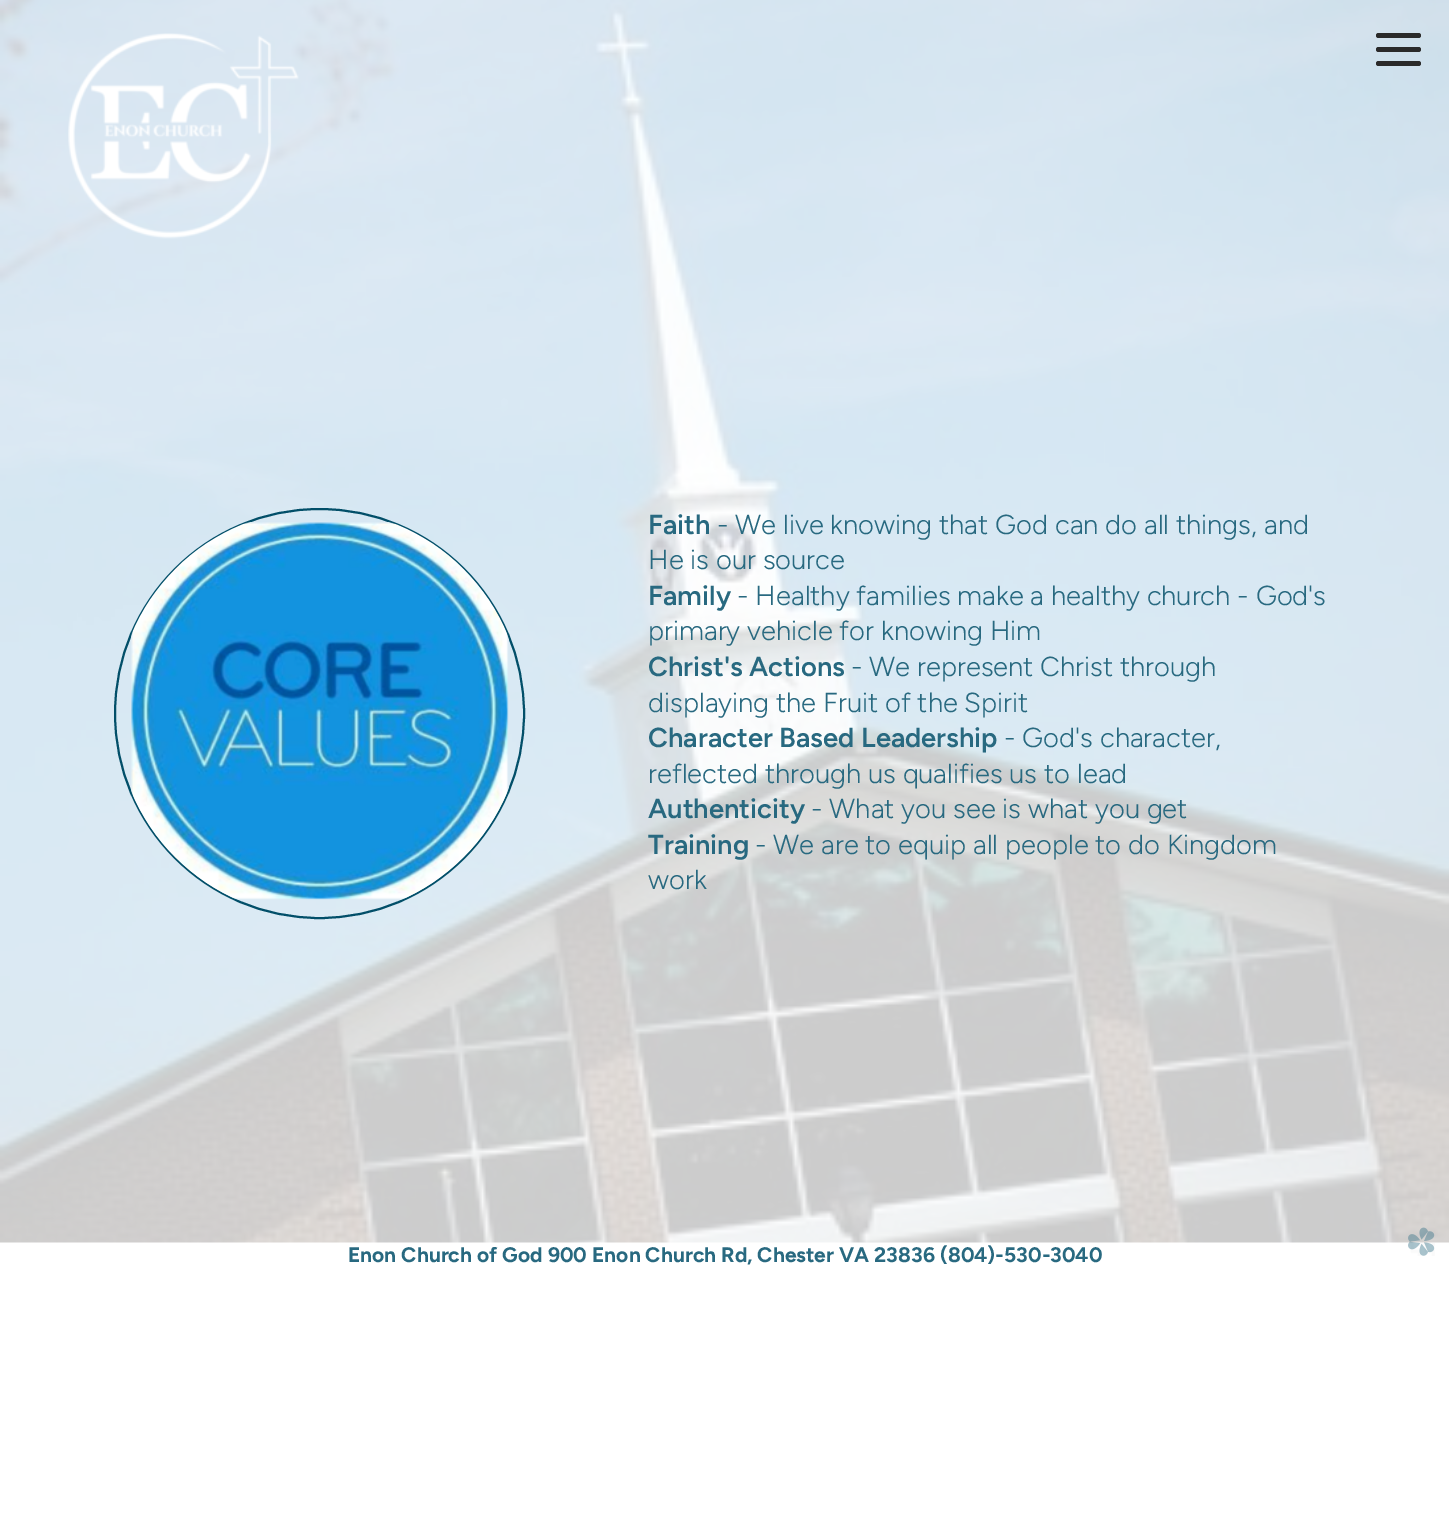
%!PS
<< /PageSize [1449 1519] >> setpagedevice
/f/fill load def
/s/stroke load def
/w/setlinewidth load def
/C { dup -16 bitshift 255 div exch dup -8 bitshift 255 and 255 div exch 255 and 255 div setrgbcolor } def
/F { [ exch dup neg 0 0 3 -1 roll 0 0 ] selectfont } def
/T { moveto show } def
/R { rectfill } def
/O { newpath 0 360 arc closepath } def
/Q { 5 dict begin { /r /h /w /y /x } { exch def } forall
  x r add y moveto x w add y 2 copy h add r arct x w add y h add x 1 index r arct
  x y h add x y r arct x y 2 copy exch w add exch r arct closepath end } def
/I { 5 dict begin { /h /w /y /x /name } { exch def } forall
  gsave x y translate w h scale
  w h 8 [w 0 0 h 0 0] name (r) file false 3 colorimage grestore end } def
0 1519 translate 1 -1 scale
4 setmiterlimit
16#FFFFFF C
0 0 1449 1519 R
(2.rgb) 0 0 1449 1243 I
16#2A2A2A C
1376 33 45 5 2.5 Q f
1376 47 45 5 2.5 Q f
1376 61 45 5 2.5 Q f
(1.rgb) 68 33 231 206 I
16#024F69 C
2 w
319.5 713.5 204.5 O s
(3.rgb) 131 522 378 378 I
/Figtree-SemiBold 27.4 F
16#286980 C
(Faith) 648 534 T
/Figtree-Light 27.4 F
(- We live knowing that God can do all things, and) 717 534 T
(He is our source) 648 569 T
/Figtree-SemiBold 27.4 F
(Family) 648 605 T
/Figtree-Light 27.4 F
(- Healthy families make a healthy church - God's) 737 605 T
(primary vehicle for knowing Him) 648 640 T
/Figtree-SemiBold 27.4 F
(Christ's Actions) 648 676 T
/Figtree-Light 27.4 F
(- We represent Christ through) 851 676 T
(displaying the Fruit of the Spirit) 648 712 T
/Figtree-SemiBold 27.4 F
(Character Based Leadership) 648 747 T
/Figtree-Light 27.4 F
(- God's character,) 1004 747 T
(reflected through us qualifies us to lead) 648 783 T
/Figtree-SemiBold 27.4 F
(Authenticity) 648 818 T
/Figtree-Light 27.4 F
(- What you see is what you get) 811 818 T
/Figtree-SemiBold 27.4 F
(Training) 648 854 T
/Figtree-Light 27.4 F
(- We are to equip all people to do Kingdom) 755 854 T
(work) 648 889 T
/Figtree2-Light 21 F
(Enon Church of God 900 Enon Church Rd, Chester VA 23836 \(804\)-530-3040) 348 1262 T
(4.rgb) 1408 1227 27 29 I
showpage
